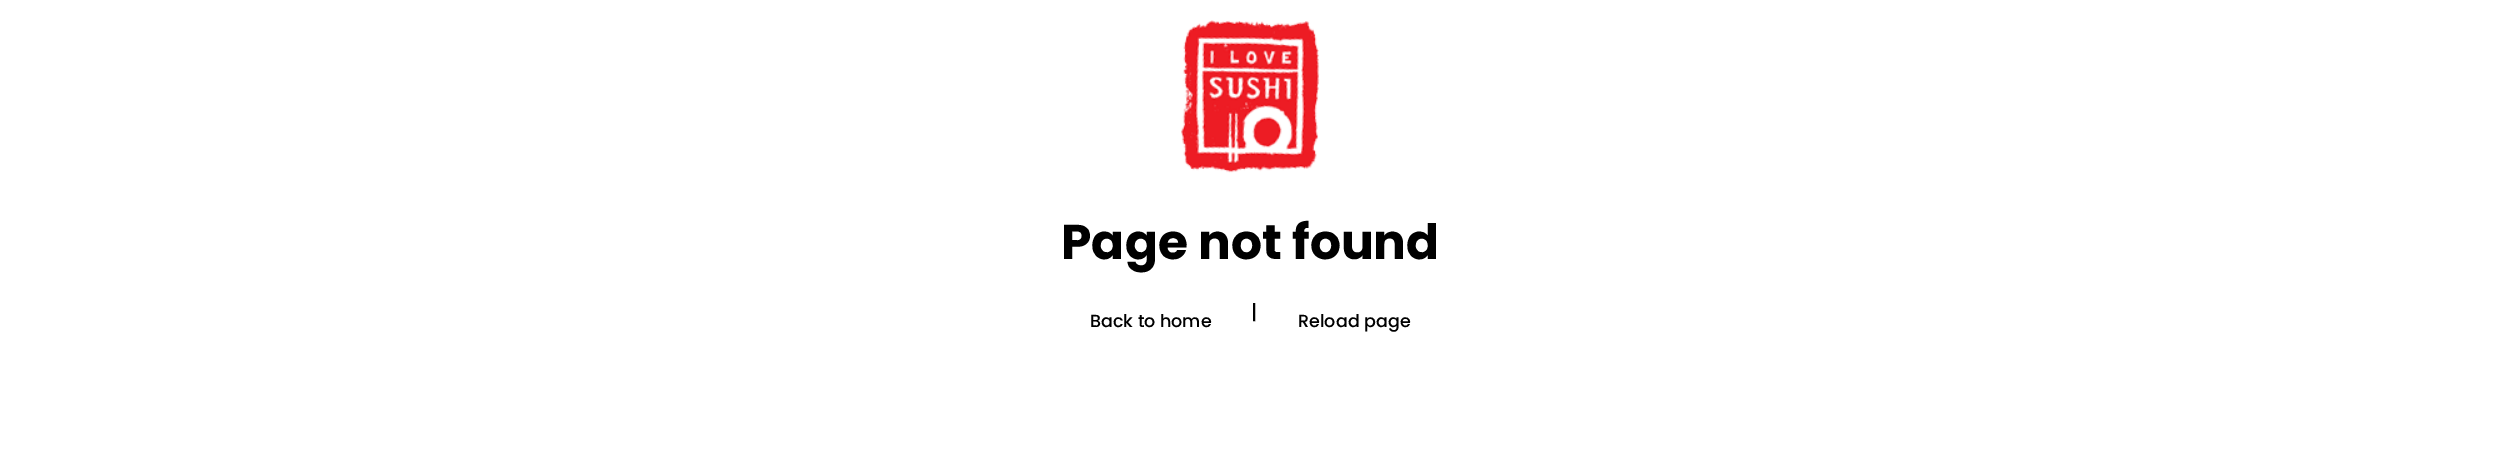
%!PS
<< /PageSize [2500 475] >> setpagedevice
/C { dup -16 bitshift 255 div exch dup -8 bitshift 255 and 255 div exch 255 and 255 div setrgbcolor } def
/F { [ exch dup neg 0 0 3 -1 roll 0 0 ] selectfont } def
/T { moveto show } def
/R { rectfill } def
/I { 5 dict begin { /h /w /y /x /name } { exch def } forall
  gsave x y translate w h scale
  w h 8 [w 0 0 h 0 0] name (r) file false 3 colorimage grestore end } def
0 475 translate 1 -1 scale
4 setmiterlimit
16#FFFFFF C
0 0 2500 475 R
(1.rgb) 1181 20 139 153 I
/Poppins-Bold 48.75 F
16#000000 C
(Page not found) 1061 259 T
/Poppins-Medium 17.5 F
(Back to home) 1090 327 T
/Poppins-Medium 20 F
(|) 1251 319 T
/Poppins-Medium 17.5 F
(Reload page) 1298 327 T
showpage
